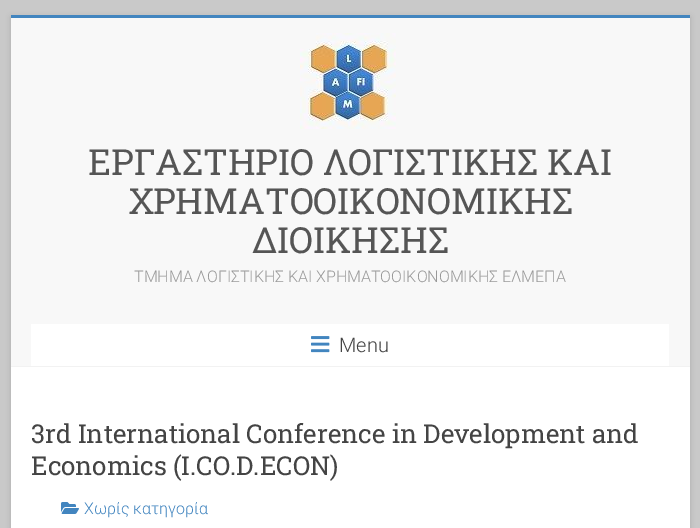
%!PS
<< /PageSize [700 528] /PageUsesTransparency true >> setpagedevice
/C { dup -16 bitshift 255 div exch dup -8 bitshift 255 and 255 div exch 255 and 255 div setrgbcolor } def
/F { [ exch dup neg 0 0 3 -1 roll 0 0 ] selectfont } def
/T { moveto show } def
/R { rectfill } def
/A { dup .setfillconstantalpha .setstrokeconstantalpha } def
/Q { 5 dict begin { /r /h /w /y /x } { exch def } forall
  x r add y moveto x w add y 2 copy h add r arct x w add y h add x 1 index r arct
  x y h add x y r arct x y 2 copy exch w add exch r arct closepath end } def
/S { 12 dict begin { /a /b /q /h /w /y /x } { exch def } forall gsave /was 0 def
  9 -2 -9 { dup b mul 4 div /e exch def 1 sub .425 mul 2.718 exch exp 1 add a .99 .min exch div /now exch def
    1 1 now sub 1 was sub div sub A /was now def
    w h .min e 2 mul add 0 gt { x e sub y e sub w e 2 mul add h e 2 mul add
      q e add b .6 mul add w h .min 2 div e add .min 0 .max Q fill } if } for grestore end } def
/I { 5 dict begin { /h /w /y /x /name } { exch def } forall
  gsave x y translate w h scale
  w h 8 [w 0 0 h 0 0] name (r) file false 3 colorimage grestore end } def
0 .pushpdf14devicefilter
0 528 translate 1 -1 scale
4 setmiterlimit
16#C9C9C9 C
0 0 700 528 R
16#646464 C
11 17 679 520 0 3 .3 S
16#FFFFFF C
11 367 679 161 R
16#4285BF C
11 15 679 3 R
16#F8F8F8 C
11 18 679 348 R
16#F2F2F2 C
11 366 679 1 R
(1.rgb) 300 33 96 96 I
/RobotoSlab-Regular 36 F
16#555555 C
(ΕΡΓΑΣΤΗΡΙΟ ΛΟΓΙΣΤΙΚΗΣ ΚΑΙ) 88 175 T
(ΧΡΗΜΑΤΟΟΙΚΟΝΟΜΙΚΗΣ) 128 214 T
(ΔΙΟΙΚΗΣΗΣ) 252 253 T
/Roboto-Light 16 F
16#999999 C
(ΤΜΗΜΑ ΛΟΓΙΣΤΙΚΗΣ ΚΑΙ ΧΡΗΜΑΤΟΟΙΚΟΝΟΜΙΚΗΣ ΕΛΜΕΠΑ) 134 282 T
16#FFFFFF C
31 324 638 42 R
(2.rgb) 311 336 19 17 I
/Roboto-Light 20 F
16#444444 C
(Menu) 339 352 T
/RobotoSlab-Regular 26 F
(3rd International Conference in Development and) 31 443 T
(Economics \(I.CO.D.ECON\)) 31 475 T
(3.rgb) 61 502 18 12 I
/Roboto-Light 16 F
16#4285BF C
(Χωρίς κατηγορία) 84 514 T
.poppdf14devicefilter showpage
